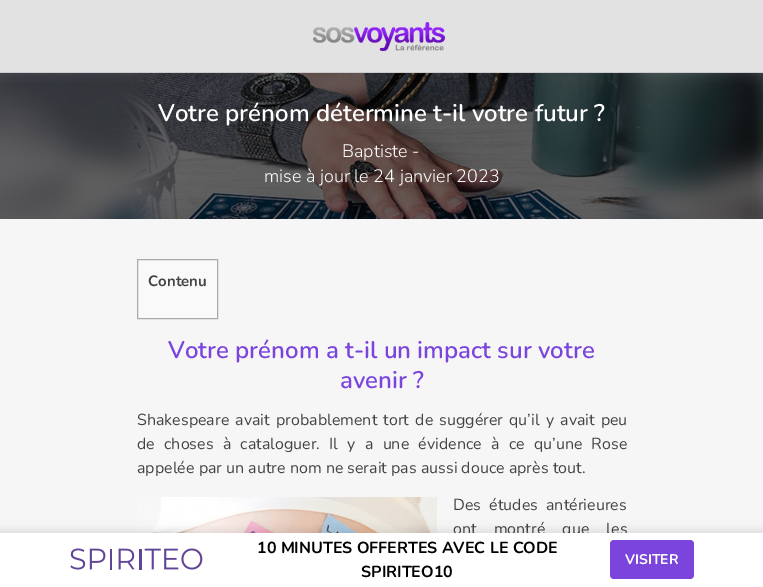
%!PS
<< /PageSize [763 587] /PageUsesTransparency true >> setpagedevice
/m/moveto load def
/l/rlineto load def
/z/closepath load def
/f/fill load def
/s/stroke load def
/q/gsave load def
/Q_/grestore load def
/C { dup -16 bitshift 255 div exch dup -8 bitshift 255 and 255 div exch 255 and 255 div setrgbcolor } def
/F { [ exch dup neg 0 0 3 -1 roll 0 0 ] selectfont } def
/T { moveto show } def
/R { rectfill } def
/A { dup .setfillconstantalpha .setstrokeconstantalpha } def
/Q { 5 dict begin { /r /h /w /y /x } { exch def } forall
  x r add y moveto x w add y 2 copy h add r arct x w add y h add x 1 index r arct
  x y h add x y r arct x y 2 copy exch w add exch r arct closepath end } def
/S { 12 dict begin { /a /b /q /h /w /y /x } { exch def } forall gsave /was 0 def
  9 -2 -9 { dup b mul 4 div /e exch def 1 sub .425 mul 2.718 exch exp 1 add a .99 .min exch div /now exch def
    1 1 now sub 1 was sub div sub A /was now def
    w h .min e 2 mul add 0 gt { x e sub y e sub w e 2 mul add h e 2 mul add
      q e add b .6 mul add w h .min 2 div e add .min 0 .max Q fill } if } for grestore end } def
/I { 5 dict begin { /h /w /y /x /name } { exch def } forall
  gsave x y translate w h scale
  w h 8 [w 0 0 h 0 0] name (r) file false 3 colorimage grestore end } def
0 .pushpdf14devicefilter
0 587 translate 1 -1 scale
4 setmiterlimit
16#F6F6F6 C
0 0 763 587 R
16#E2E2E2 C
0 0 763 72 R
16#CBCBCB C
0 72 763 1 R
(1.rgb) 313 22 132 29 I
(2.rgb) 0 73 763 146 I
/Nunito-SemiBold 24 F
16#FFFFFF C
(Votre prénom détermine t-il votre futur ?) 158 121 T
/Nunito-Light 18 F
(Baptiste -) 342 157 T
(mise à jour le 24 janvier 2023) 264 182 T
16#F9F9F9 C
137.5 259.5 m 80 0 l 0 59 l -80 0 l z q f Q_
16#AAAAAA C
s
/Nunito-Bold 15 F
16#444444 C
(Contenu) 148 286 T
/Nunito-SemiBold 24 F
16#7A44DD C
(Votre prénom a t-il un impact sur votre) 168 358 T
(avenir ?) 340 388 T
/Nunito-Regular 16 F
16#444444 C
137 425 m 2 0 32 (Shakespeare avait probablement tort de suggérer qu’il y avait peu) widthshow
137 449 m 5.1 0 32 (de choses à cataloguer. Il y a une évidence à ce qu’une Rose) widthshow
(appelée par un autre nom ne serait pas aussi douce après tout.) 137 473 T
(3.rgb) 137 497 300 36 I
453 510 m 4 0 32 (Des études antérieures) widthshow
453 534 m 13 0 32 (ont montré que les) widthshow
16#000000 C
0 530 763 54 0 4.5 .1 S
16#FFFFFF C
0 533 763 54 R
(4.rgb) 70 548 133 22 I
/Nunito-Bold 16 F
16#000000 C
(10 MINUTES OFFERTES AVEC LE CODE) 257 553 T
(SPIRITEO10) 361 577 T
16#7A44DD C
610 540 84 39 4 Q f
/Nunito-Bold 14 F
16#FFFFFF C
(VISITER) 625 564 T
.poppdf14devicefilter showpage
